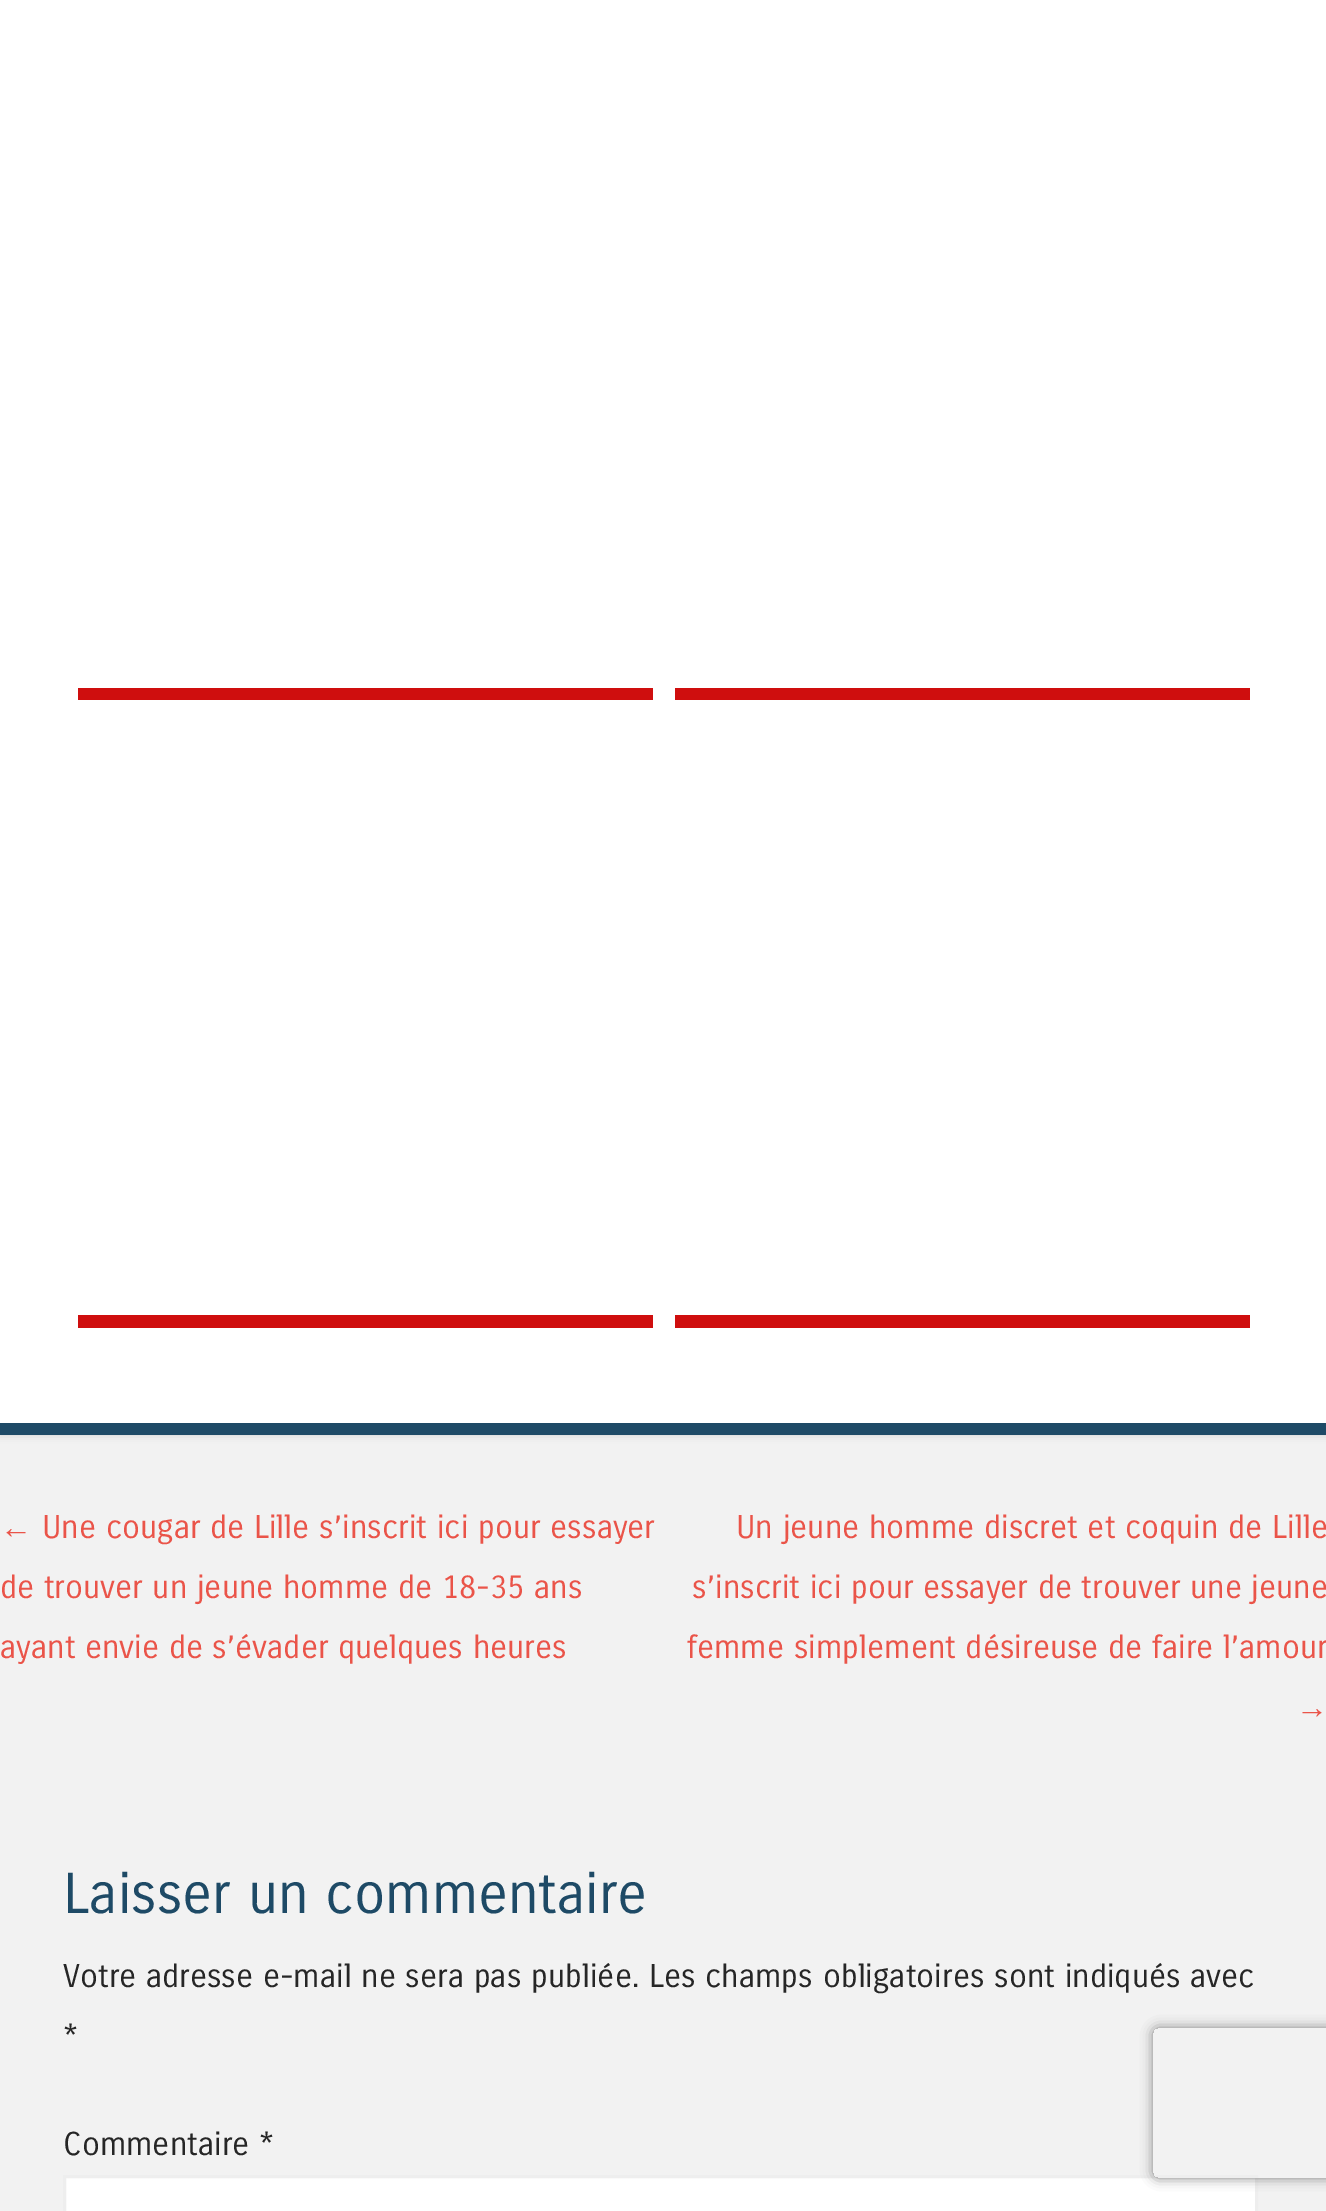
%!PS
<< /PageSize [1326 2211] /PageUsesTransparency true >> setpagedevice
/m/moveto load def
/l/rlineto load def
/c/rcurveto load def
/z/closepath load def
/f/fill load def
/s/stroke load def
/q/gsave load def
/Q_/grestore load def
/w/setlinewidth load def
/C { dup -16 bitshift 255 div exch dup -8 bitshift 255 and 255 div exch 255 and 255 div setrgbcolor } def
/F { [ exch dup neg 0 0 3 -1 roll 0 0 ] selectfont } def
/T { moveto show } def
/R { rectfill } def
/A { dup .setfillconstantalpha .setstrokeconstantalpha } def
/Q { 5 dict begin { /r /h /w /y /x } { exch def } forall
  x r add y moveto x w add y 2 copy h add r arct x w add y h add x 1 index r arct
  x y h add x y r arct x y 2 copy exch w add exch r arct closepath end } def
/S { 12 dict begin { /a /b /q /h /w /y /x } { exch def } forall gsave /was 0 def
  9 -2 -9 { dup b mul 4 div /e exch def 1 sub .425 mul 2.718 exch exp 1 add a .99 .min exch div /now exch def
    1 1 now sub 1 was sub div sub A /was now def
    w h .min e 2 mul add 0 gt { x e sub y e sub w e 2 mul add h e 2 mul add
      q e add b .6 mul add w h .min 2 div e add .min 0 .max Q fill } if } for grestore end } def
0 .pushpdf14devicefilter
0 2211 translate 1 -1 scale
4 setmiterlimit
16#F2F2F2 C
0 0 1326 2211 R
16#646464 C
0 -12 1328 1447 0 4 .25 S
16#FFFFFF C
0 0 1326 1423 R
16#1E4A66 C
0 1423 1326 12 R
16#CF0E0E C
78 688 575 12 R
675 688 575 12 R
78 1315 575 13 R
675 1315 575 13 R
/LiberationSans-Regular 32 F
16#EA5449 C
(←) 0 1538 T
/CarroisGothic-Regular 32 F
(Une cougar de Lille s’inscrit ici pour essayer) 42 1538 T
(de trouver un jeune homme de 18-35 ans) 0 1598 T
(ayant envie de s’évader quelques heures) 0 1658 T
(Un jeune homme discret et coquin de Lille) 736 1538 T
(s’inscrit ici pour essayer de trouver une jeune) 692 1598 T
(femme simplement désireuse de faire l’amour) 687 1658 T
/LiberationSans-Regular 32 F
(→) 1296 1718 T
/CarroisGothic-Regular 56 F
16#1E4A66 C
(Laisser un commentaire) 63 1913 T
/CarroisGothic-Regular 32 F
16#262626 C
(Votre adresse e-mail ne sera pas publiée. Les champs obligatoires sont indiqués avec) 63 1987 T
(*) 63 2047 T
(Commentaire *) 63 2155 T
16#FFFFFF C
64.5 2176.5 m 1192 0 l 0 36 l -1192 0 l z q f Q_
16#EEEEEE C
3 w
s
q
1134 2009 m 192 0 l 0 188 l -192 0 l z 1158 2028 m 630 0 l 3 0 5 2 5 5 c 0 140 l 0 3 -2 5 -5 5 c -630 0 l -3 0 -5 -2 -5 -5 c 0 -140 l 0 -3 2 -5 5 -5 c z eoclip newpath
16#808080 C
1153 2028 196 150 5 6 1 S
Q_
.poppdf14devicefilter showpage
